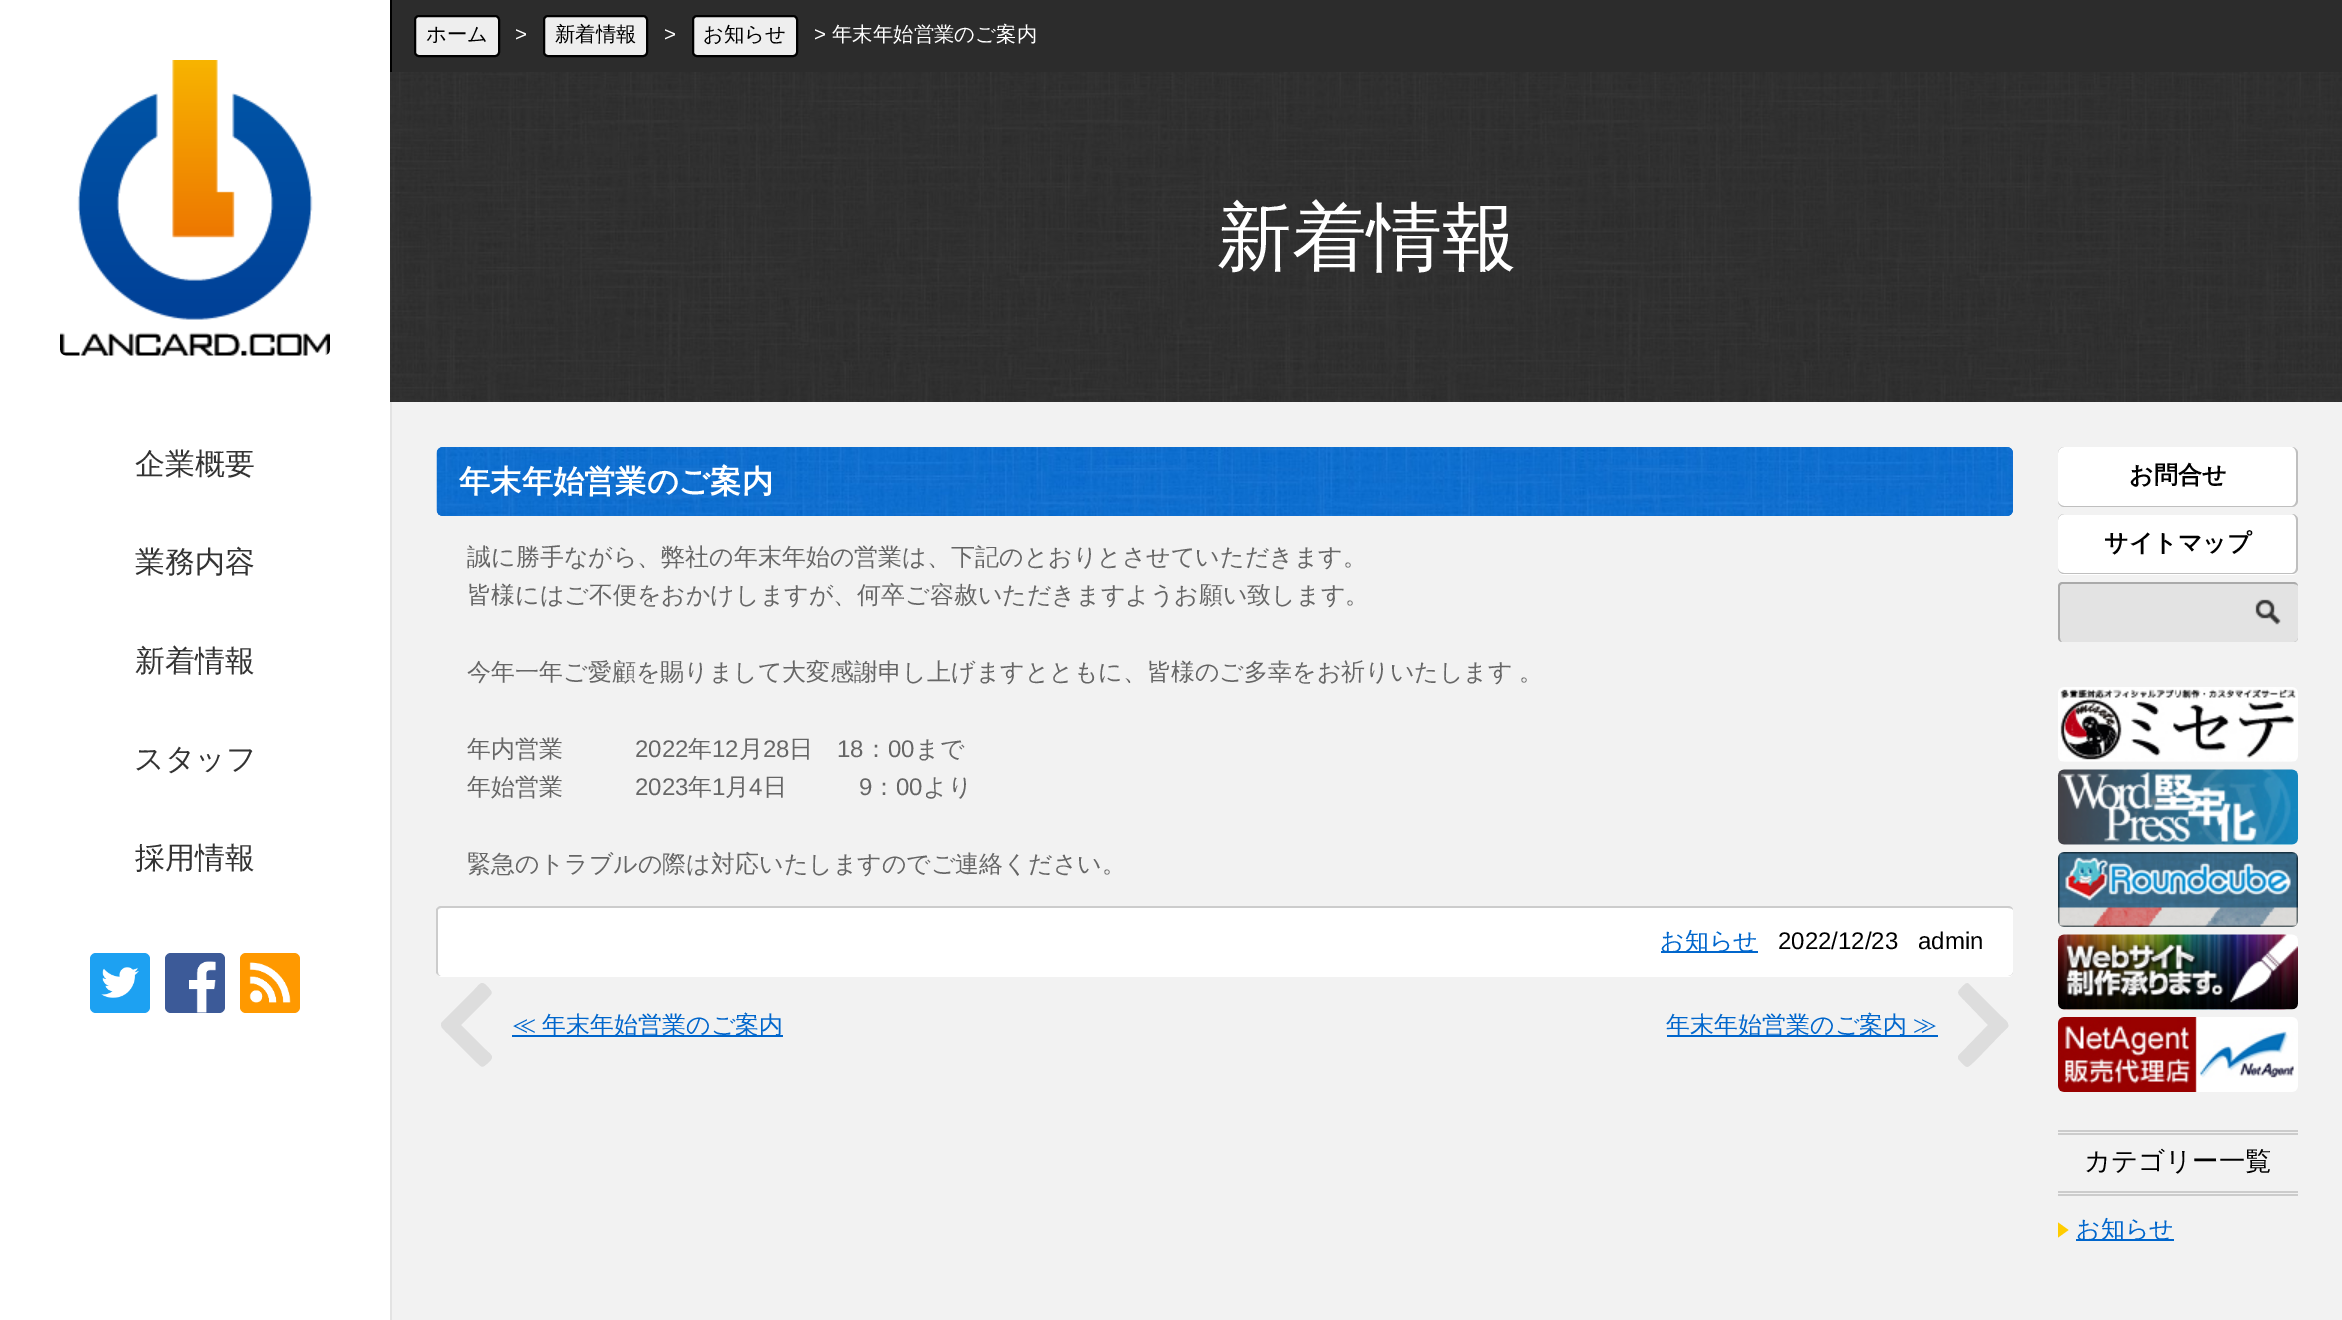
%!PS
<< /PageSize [2342 1320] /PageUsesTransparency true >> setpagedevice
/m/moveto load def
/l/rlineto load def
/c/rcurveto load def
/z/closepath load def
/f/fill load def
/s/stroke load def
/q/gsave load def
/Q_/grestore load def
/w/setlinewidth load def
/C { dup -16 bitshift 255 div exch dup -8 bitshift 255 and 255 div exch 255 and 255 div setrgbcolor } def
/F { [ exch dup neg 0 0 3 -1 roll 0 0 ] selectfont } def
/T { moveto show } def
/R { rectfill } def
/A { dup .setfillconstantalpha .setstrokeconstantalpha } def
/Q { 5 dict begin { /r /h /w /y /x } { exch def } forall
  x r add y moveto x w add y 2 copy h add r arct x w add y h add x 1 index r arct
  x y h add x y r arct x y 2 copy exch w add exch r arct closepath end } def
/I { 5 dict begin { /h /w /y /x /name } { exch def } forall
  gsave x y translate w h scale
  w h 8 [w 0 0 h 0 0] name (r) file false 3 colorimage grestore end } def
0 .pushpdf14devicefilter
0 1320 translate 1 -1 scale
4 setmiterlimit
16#F2F2F2 C
0 0 2342 1320 R
16#2C2C2C C
392 0 1950 72 R
16#000000 C
390 0 2 72 R
16#EEEEEE C
415 16 84 40 4 Q q f Q_
16#000000 C
2 w
s
/WenQuanYiZenHei-Medium 20.4 F
(ホーム) 426 41 T
/LiberationSans-Regular 20.4 F
16#FFFFFF C
(>) 515 41 T
16#EEEEEE C
544 16 103 40 4 Q q f Q_
16#000000 C
s
/WenQuanYiZenHei-Medium 20.4 F
(新着情報) 555 41 T
/LiberationSans-Regular 20.4 F
16#FFFFFF C
(>) 664 41 T
16#EEEEEE C
693 16 104 40 4 Q q f Q_
16#000000 C
s
/WenQuanYiZenHei-Medium 20.4 F
(お知らせ) 703 41 T
/LiberationSans-Regular 20.4 F
16#FFFFFF C
(>) 814 41 T
/WenQuanYiZenHei-Medium 20.4 F
(年末年始営業のご案内) 832 41 T
0 0 390 1320 R
(1.rgb) 60 60 270 296 I
/WenQuanYiZenHei-Medium 30 F
16#333333 C
(企業概要) 135 474 T
(業務内容) 135 572 T
(新着情報) 135 671 T
(スタッフ) 134 769 T
(採用情報) 135 868 T
16#1DA1F2 C
90 953 60 60 6 Q f
(2.rgb) 101 967 38 31 I
16#3C5A98 C
165 953 60 60 6 Q f
(3.rgb) 189 961 27 52 I
16#FF9900 C
240 953 60 60 6 Q f
(4.rgb) 249 962 42 41 I
16#E3E3E3 C
390 402 2 918 R
(5.rgb) 390 72 1952 330 I
/WenQuanYiZenHei-Medium 75 F
16#FFFFFF C
(新着情報) 1217 263 T
(6.rgb) 436 447 1577 69 I
/WenQuanYiZenHei-Bold 31.25 F
(年末年始営業のご案内) 459 492 T
/WenQuanYiZenHei-Medium 24 F
16#666666 C
(誠に勝手ながら、弊社の年末年始の営業は、下記のとおりとさせていただきます。) 467 565 T
(皆様にはご不便をおかけしますが、何卒ご容赦いただきますようお願い致します。) 467 603 T
467 680 m -1 0 32 (今年一年ご愛顧を賜りまして大変感謝申し上げますとともに、皆様のご多幸をお祈りいたします 。) widthshow
(年内営業) 467 757 T
/LiberationSans-Regular 24 F
(2022) 635 757 T
/WenQuanYiZenHei-Medium 24 F
(年) 688 757 T
/LiberationSans-Regular 24 F
(12) 712 757 T
/WenQuanYiZenHei-Medium 24 F
(月) 739 757 T
/LiberationSans-Regular 24 F
(28) 763 757 T
/WenQuanYiZenHei-Medium 24 F
(日) 789 757 T
/LiberationSans-Regular 24 F
(18) 837 757 T
/WenQuanYiZenHei-Medium 24 F
(：) 864 757 T
/LiberationSans-Regular 24 F
(00) 888 757 T
/WenQuanYiZenHei-Medium 24 F
(まで) 915 757 T
(年始営業) 467 795 T
/LiberationSans-Regular 24 F
(2023) 635 795 T
/WenQuanYiZenHei-Medium 24 F
(年) 688 795 T
/LiberationSans-Regular 24 F
(1) 712 795 T
/WenQuanYiZenHei-Medium 24 F
(月) 725 795 T
/LiberationSans-Regular 24 F
(4) 749 795 T
/WenQuanYiZenHei-Medium 24 F
(日) 763 795 T
/LiberationSans-Regular 24 F
(9) 859 795 T
/WenQuanYiZenHei-Medium 24 F
(：) 872 795 T
/LiberationSans-Regular 24 F
(00) 896 795 T
/WenQuanYiZenHei-Medium 24 F
(より) 923 795 T
(緊急のトラブルの際は対応いたしますのでご連絡ください。) 467 872 T
16#FFFFFF C
437 906 1576 71 5 Q f
16#CCCCCC C
441 906 m 1567 0 l 3 0 5 2 5 4 c 0 62 l 0 2 -2 4 -5 4 c -1567 0 l -2 0 -5 -2 -5 -4 c 0 -62 l 0 -2 3 -4 5 -4 c z 441 908 m 1567 0 l 3 0 5 1 5 2 c 0 62 l 0 2 -2 4 -5 4 c -1567 0 l -2 0 -3 -2 -3 -4 c 0 -62 l 0 -1 1 -2 3 -2 c z eofill
16#0066CC C
1661 951 97 2 R
(お知らせ) 1660 949 T
/LiberationSans-Regular 24 F
16#000000 C
(2022/12/23) 1778 949 T
(admin) 1918 949 T
16#DDDDDD C
442 1022 m 32 -32 l 6 -6 7 -10 13 -4 c 7 8 6 6 -2 15 c -26 26 l -9 9 -8 9 -16 1 c -1 -2 -3 -4 -1 -6 c z f
16#0066CC C
512 1035 271 2 R
/WenQuanYiZenHei-Medium 24 F
512 1033 m -1 0 32 (≪ 年末年始営業のご案内) widthshow
16#DDDDDD C
453 1017 m 32 32 l 6 6 10 7 4 13 c -8 7 -6 6 -15 -2 c -26 -26 l -9 -9 -9 -8 -1 -16 c 2 -1 4 -3 6 -1 c z f
16#0066CC C
1667 1035 271 2 R
1666 1033 m -1 0 32 (年末年始営業のご案内 ≫) widthshow
16#DDDDDD C
1959 1055 m 31 -32 l 7 -6 7 -10 13 -4 c 8 8 7 6 -2 15 c -25 26 l -10 9 -8 9 -16 1 c -2 -2 -3 -4 -1 -6 c z f
1969 984 m 32 32 l 6 6 10 7 4 13 c -7 7 -6 6 -15 -2 c -25 -26 l -9 -9 -9 -8 -1 -16 c 1 -1 3 -3 5 -1 c z f
16#FFFFFF C
2058 447 240 60 6 Q f
0.25 A
16#000000 C
2064 447 m 228 0 l 3 0 6 3 6 6 c 0 48 l 0 3 -3 6 -6 6 c -228 0 l -3 0 -6 -3 -6 -6 c 0 -48 l 0 -3 3 -6 6 -6 c z 2064 447 m 228 0 l 2 0 4 3 4 6 c 0 48 l 0 2 -2 5 -4 5 c -228 0 l -3 0 -6 -3 -6 -5 c 0 -48 l 0 -3 3 -6 6 -6 c z eofill
/WenQuanYiZenHei-Bold 24 F
1 A
(お問合せ) 2129 483 T
16#FFFFFF C
2058 515 240 60 6 Q f
0.25 A
16#000000 C
2064 514 m 228 0 l 3 0 6 3 6 6 c 0 48 l 0 4 -3 6 -6 6 c -228 0 l -3 0 -6 -2 -6 -6 c 0 -48 l 0 -3 3 -6 6 -6 c z 2064 514 m 228 0 l 2 0 4 3 4 6 c 0 48 l 0 3 -2 5 -4 5 c -228 0 l -3 0 -6 -2 -6 -5 c 0 -48 l 0 -3 3 -6 6 -6 c z eofill
1 A
(サイトマップ) 2104 551 T
16#E3E3E3 C
2058 582 240 60 5 Q f
0.25 A
16#000000 C
2062 582 m 232 0 l 2 0 4 2 4 4 c 0 52 l 0 2 -2 4 -4 4 c -232 0 l -2 0 -4 -2 -4 -4 c 0 -52 l 0 -2 2 -4 4 -4 c z 2062 584 m 232 0 l 2 0 4 1 4 2 c 0 52 l 0 2 -2 4 -4 4 c -232 0 l -1 0 -2 -2 -2 -4 c 0 -52 l 0 -1 1 -2 2 -2 c z eofill
1 A
(7.rgb) 2255 599 26 26 I
(8.rgb) 2058 687 240 75 I
(9.rgb) 2057 769 241 76 I
(10.rgb) 2058 852 240 75 I
(11.rgb) 2057 934 241 76 I
(12.rgb) 2058 1017 240 75 I
16#CCCCCC C
2058 1130 240 2 R
2058 1133 240 2 R
2058 1191 240 2 R
2058 1194 240 2 R
/WenQuanYiZenHei-Medium 26.5 F
16#000000 C
(カテゴリー一覧) 2084 1170 T
16#FFCC00 C
2058 1237.5 m 0 -15 l 10.5 7.5 l z f
16#0066CC C
2076 1239 98 2 R
/WenQuanYiZenHei-Medium 24 F
(お知らせ) 2076 1237 T
.poppdf14devicefilter showpage
